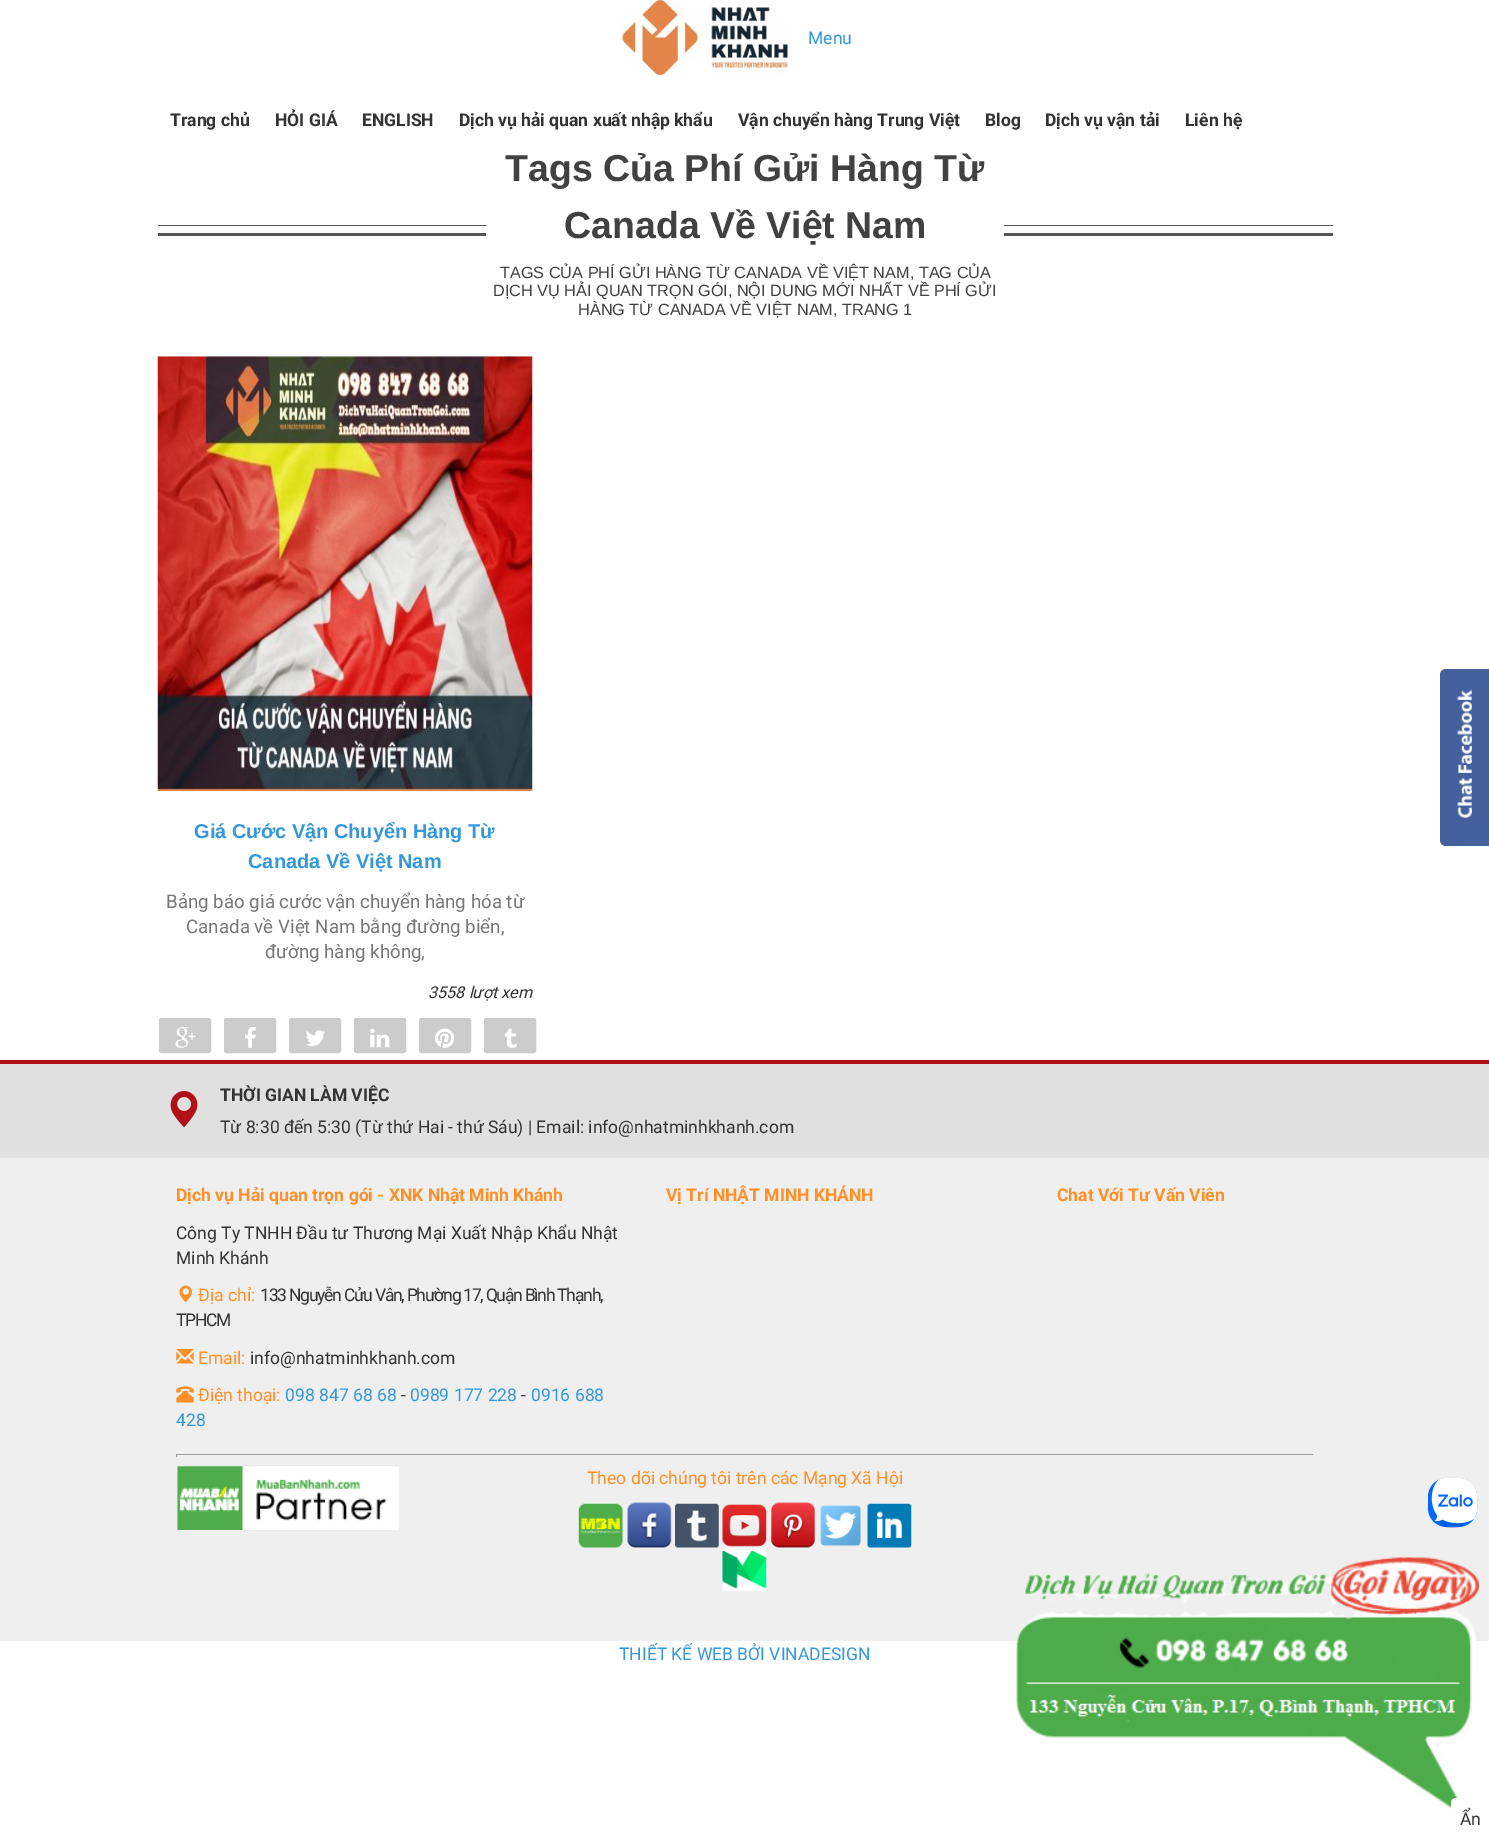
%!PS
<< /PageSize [1489 1839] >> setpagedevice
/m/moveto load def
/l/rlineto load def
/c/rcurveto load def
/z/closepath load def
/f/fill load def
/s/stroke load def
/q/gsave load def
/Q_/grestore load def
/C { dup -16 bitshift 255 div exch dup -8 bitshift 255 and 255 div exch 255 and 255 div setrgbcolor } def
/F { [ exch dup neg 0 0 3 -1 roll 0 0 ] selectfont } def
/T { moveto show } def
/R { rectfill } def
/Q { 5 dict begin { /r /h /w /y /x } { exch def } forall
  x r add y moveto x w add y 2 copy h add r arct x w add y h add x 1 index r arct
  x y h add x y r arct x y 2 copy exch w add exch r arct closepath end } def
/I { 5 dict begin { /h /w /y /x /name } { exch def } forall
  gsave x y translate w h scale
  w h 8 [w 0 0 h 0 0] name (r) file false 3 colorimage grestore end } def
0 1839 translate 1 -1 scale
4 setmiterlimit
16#FFFFFF C
0 0 1489 1839 R
(1.rgb) 622 0 166 75 I
/Roboto-Regular 17.5 F
16#3498DB C
(Menu) 808 44 T
/Roboto-Bold 17.5 F
16#333333 C
(Trang chủ) 170 126 T
(HỎI GIÁ) 275 126 T
(ENGLISH) 362 126 T
(Dịch vụ hải quan xuất nhập khẩu) 459 126 T
(Vận chuyển hàng Trung Việt) 738 126 T
(Blog) 985 126 T
(Dịch vụ vận tải) 1045 126 T
(Liên hệ) 1185 126 T
16#555555 C
158 225 1175 1 R
158 233 1175 3 R
16#FFFFFF C
486 225 518 11 R
/LiberationSans-Bold 37.5 F
16#414141 C
(Tags Của Phí Gửi Hàng Từ) 505 181 T
(Canada Về Việt Nam) 564 238 T
/LiberationSans-Regular 16.25 F
(TAGS CỦA PHÍ GỬI HÀNG TỪ CANADA VỀ VIỆT NAM, TAG CỦA) 500 278 T
(DỊCH VỤ HẢI QUAN TRỌN GÓI, NỘI DUNG MỚI NHẤT VỀ PHÍ GỬI) 493 296 T
(HÀNG TỪ CANADA VỀ VIỆT NAM, TRANG 1) 578 315 T
(2.rgb) 157 356 376 436 I
/LiberationSans-Bold 20 F
16#3498DB C
(Giá Cước Vận Chuyển Hàng Từ) 194 838 T
(Canada Về Việt Nam) 248 868 T
/Roboto-Regular 18.75 F
16#777777 C
(Bảng báo giá cước vận chuyển hàng hóa từ) 166 908 T
(Canada về Việt Nam bằng đường biển,) 186 933 T
(đường hàng không,) 265 958 T
/Roboto-Italic 16.25 F
16#333333 C
(3558 lượt xem) 428 998 T
16#45619D C
1446 669 m 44 0 l 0 177 l -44 0 l -3.5 0 -6 -2.5 -6 -6 c 0 -165 l 0 -3.5 2.5 -6 6 -6 c z f
(3.rgb) 1457 689 15 129 I
16#CCCCCC C
159.5 1018.5 51 34 2 Q q f Q_
s
(4.rgb) 175 1027 21 21 I
224.5 1018.5 51 34 2 Q q f Q_
s
(5.rgb) 245 1027 11 21 I
289.5 1018.5 51 34 2 Q q f Q_
s
(6.rgb) 306 1030 19 17 I
354.5 1018.5 51 34 2 Q q f Q_
s
(7.rgb) 370 1028 20 20 I
419.5 1018.5 51 34 2 Q q f Q_
s
(8.rgb) 435 1028 20 20 I
484.5 1018.5 51 34 2 Q q f Q_
s
(9.rgb) 504 1028 13 20 I
16#EFEFEF C
0 1158 1489 483 R
16#B11116 C
0 1060 1489 4 R
16#E0E0E0 C
0 1064 1489 94 R
(10.rgb) 170 1091 28 37 I
/Roboto-Bold 17.5 F
16#333333 C
(THỜI GIAN LÀM VIỆC) 220 1101 T
/Roboto-Regular 17.5 F
(Từ 8:30 đến 5:30 \(Từ thứ Hai - thứ Sáu\) | Email: info@nhatminhkhanh.com) 220 1133 T
/Roboto-Bold 17.5 F
16#FF9028 C
(Dịch vụ Hải quan trọn gói - XNK Nhật Minh Khánh) 176 1201 T
/Roboto-Regular 17.5 F
16#333333 C
(Công Ty TNHH Đầu tư Thương Mại Xuất Nhập Khẩu Nhật) 176 1239 T
(Minh Khánh) 176 1264 T
(11.rgb) 179 1285 13 18 I
16#FF9028 C
(Địa chỉ:) 198 1301 T
16#333333 C
260 1301 m -1.25 0 (133 Nguyễn Cửu Vân, Phường 17, Quận Bình Thạnh,) ashow
176 1326 m -1.25 0 (TPHCM) ashow
(12.rgb) 176 1348 18 16 I
16#FF9028 C
(Email:) 198 1364 T
16#333333 C
(info@nhatminhkhanh.com) 250 1364 T
(13.rgb) 176 1386 18 17 I
16#FF9028 C
(Điện thoại:) 198 1401 T
16#3498DB C
(098 847 68 68) 285 1401 T
16#333333 C
(-) 401 1401 T
16#3498DB C
(0989 177 228) 410 1401 T
16#333333 C
(-) 521 1401 T
16#3498DB C
(0916 688) 531 1401 T
(428) 176 1426 T
/Roboto-Bold 17.5 F
16#FF9028 C
(Vị Trí NHẬT MINH KHÁNH) 666 1201 T
(Chat Với Tư Vấn Viên) 1057 1201 T
16#9F9F9F C
176 1454 1138 1 R
16#EEEEEE C
1313 1454 1 3 R
16#9F9F9F C
176 1454 1 3 R
(14.rgb) 176 1465 223 65 I
/Roboto-Regular 17.5 F
16#FF9028 C
(Theo dõi chúng tôi trên các Mạng Xã Hội) 587 1484 T
(15.rgb) 578 1503 45 45 I
(16.rgb) 627 1502 45 46 I
(17.rgb) 675 1503 44 45 I
(18.rgb) 722 1504 45 43 I
(19.rgb) 771 1502 44 46 I
(20.rgb) 820 1505 41 41 I
(21.rgb) 867 1503 45 45 I
(22.rgb) 722 1547 45 45 I
(23.rgb) 1428 1478 50 50 I
16#3498DB C
(THIẾT KẾ WEB BỞI VINADESIGN) 619 1660 T
(24.rgb) 1016 1557 464 258 I
16#FFFFFF C
1451 1798 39 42 5 Q f
16#333333 C
(Ẩn) 1460 1825 T
showpage
